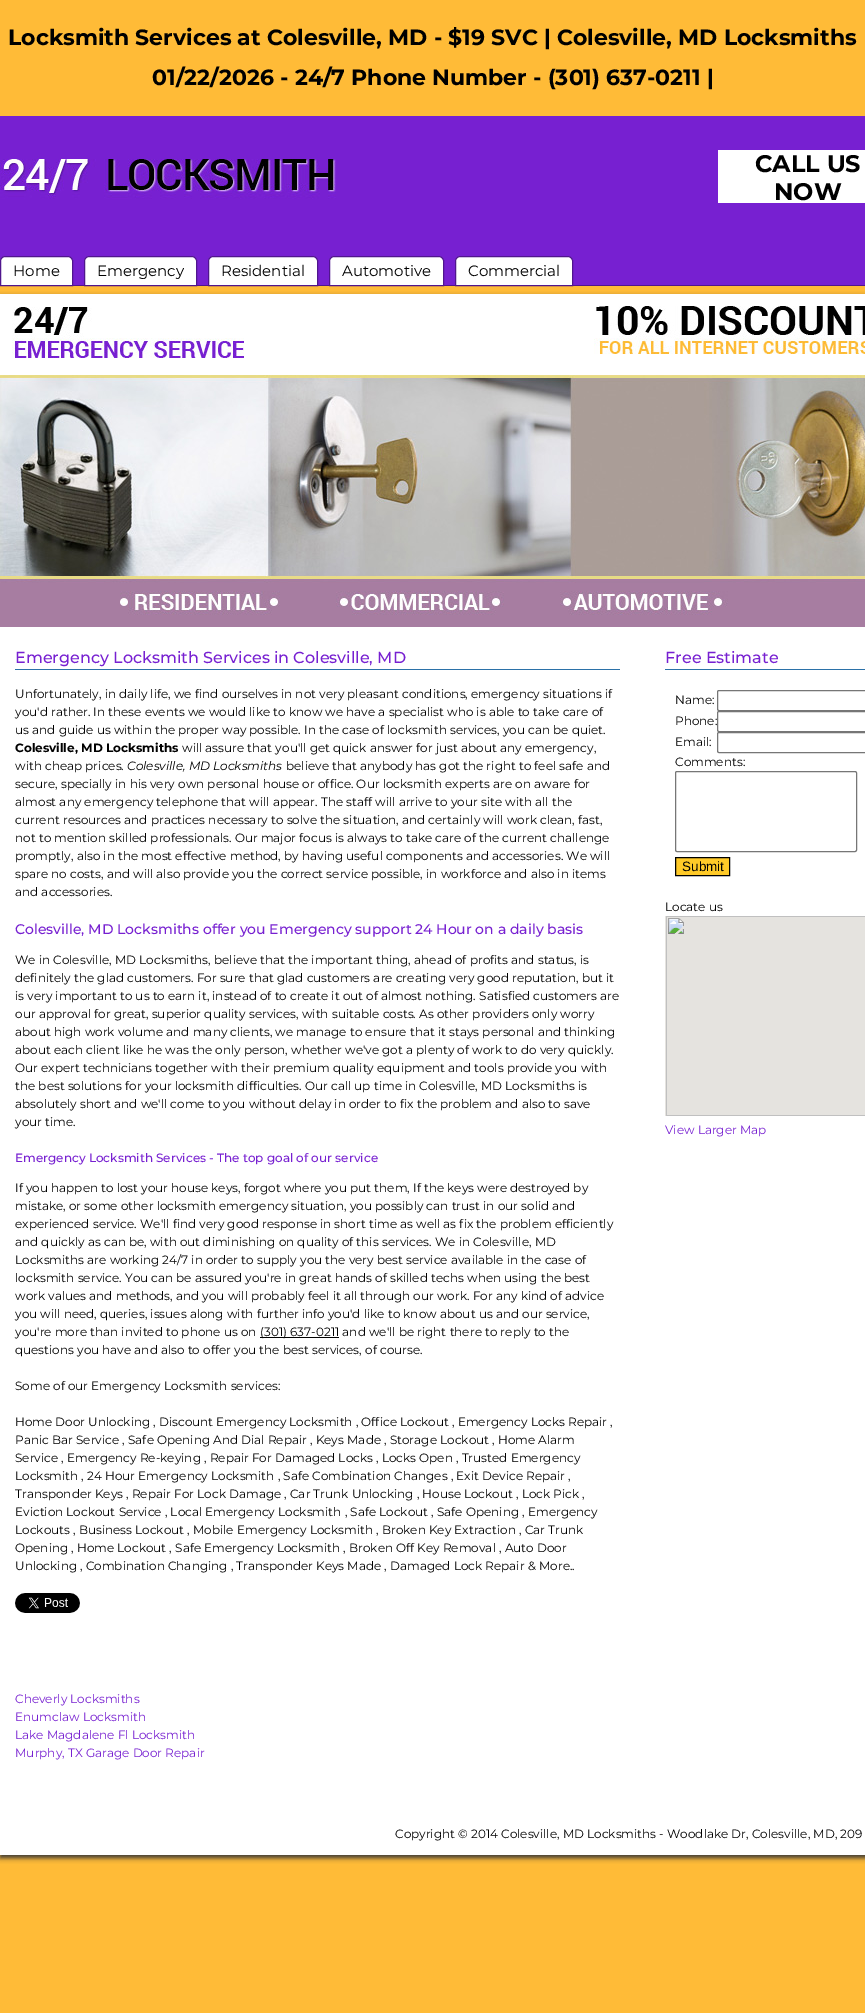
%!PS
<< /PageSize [865 2013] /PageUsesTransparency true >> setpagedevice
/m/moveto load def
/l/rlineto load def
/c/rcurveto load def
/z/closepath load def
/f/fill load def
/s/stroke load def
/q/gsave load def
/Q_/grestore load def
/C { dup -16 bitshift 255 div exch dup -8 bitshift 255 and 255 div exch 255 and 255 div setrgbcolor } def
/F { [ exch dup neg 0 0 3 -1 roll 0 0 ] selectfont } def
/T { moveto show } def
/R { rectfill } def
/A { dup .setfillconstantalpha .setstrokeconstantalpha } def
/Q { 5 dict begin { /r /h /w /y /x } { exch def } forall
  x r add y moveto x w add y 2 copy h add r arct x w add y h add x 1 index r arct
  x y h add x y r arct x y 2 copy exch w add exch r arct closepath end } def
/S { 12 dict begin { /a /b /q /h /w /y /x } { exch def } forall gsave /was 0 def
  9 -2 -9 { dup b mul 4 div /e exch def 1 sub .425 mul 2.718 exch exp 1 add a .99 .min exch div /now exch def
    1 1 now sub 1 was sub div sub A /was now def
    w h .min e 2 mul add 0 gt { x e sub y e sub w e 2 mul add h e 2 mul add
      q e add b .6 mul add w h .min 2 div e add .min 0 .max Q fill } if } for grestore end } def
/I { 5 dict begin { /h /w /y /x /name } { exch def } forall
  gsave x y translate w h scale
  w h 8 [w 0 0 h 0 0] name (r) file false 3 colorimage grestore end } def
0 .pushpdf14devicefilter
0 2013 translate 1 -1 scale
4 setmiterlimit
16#FFBB37 C
0 0 865 2013 R
/Montserrat-Bold 22 F
16#000000 C
(Locksmith Services at Colesville, MD - $19 SVC | Colesville, MD Locksmiths) 8 45 T
(01/22/2026 - 24/7 Phone Number - \(301\) 637-0211 |) 152 85 T
16#7720D1 C
0 116 865 169 R
16#50168D C
73 285 792 1 R
(1.rgb) 0 159 336 40 I
16#FFFFFF C
718 150 147 53 R
/Montserrat-Bold 24 F
16#000000 C
(CALL US) 755 172 T
(NOW) 774 200 T
16#FFFFFF C
5 256.5 m 63 0 l 2.5 0 4.5 2 4.5 4.5 c 0 24.5 l -72 0 l 0 -24.5 l 0 -2.5 2 -4.5 4.5 -4.5 c z q f Q_
16#50168D C
s
/Montserrat-Regular 15 F
16#000000 C
(Home) 13 276 T
16#FFFFFF C
89 256.5 m 103 0 l 2.5 0 4.5 2 4.5 4.5 c 0 24.5 l -112 0 l 0 -24.5 l 0 -2.5 2 -4.5 4.5 -4.5 c z q f Q_
16#50168D C
s
16#000000 C
(Emergency) 97 276 T
16#FFFFFF C
213 256.5 m 100 0 l 2.5 0 4.5 2 4.5 4.5 c 0 24.5 l -109 0 l 0 -24.5 l 0 -2.5 2 -4.5 4.5 -4.5 c z q f Q_
16#50168D C
s
16#000000 C
(Residential) 221 276 T
16#FFFFFF C
334 256.5 m 105 0 l 2.5 0 4.5 2 4.5 4.5 c 0 24.5 l -114 0 l 0 -24.5 l 0 -2.5 2 -4.5 4.5 -4.5 c z q f Q_
16#50168D C
s
16#000000 C
(Automotive) 342 276 T
16#FFFFFF C
460 256.5 m 108 0 l 2.5 0 4.5 2 4.5 4.5 c 0 24.5 l -117 0 l 0 -24.5 l 0 -2.5 2 -4.5 4.5 -4.5 c z q f Q_
16#50168D C
s
16#000000 C
(Commercial) 468 276 T
16#353535 C
0 297 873 1561 0 2.5 1 S
16#FFFFFF C
0 294 865 1561 R
(2.rgb) 12 307 232 51 I
(3.rgb) 594 306 271 48 I
(4.rgb) 0 375 865 252 I
16#2B71A8 C
15 669 605 1 R
/Montserrat-Medium 16 F
16#7720D1 C
(Emergency Locksmith Services in Colesville, MD) 15 663 T
/Montserrat-Regular 12 F
16#000000 C
(Unfortunately, in daily life, we find ourselves in not very pleasant conditions, emergency situations if) 15 698 T
(you'd rather. In these events we would like to know we have a specialist who is able to take care of) 15 716 T
(us and guide us within the proper way possible. In the case of locksmith services, you can be quiet.) 15 734 T
/Montserrat-Bold 12 F
(Colesville, MD Locksmiths) 15 752 T
/Montserrat-Regular 12 F
(will assure that you'll get quick answer for just about any emergency,) 182 752 T
(with cheap prices.) 15 770 T
/Montserrat-Italic 12 F
(Colesville, MD Locksmiths) 127 770 T
/Montserrat-Regular 12 F
(believe that anybody has got the right to feel safe and) 286 770 T
(secure, specially in his very own personal house or office. Our locksmith experts are on aware for) 15 788 T
(almost any emergency telephone that will appear. The staff will arrive to your site with all the) 15 806 T
(current resources and practices necessary to solve the situation, and certainly will work clean, fast,) 15 824 T
(not to mention skilled professionals. Our major focus is always to take care of the current challenge) 15 842 T
(promptly, also in the most effective method, by having useful components and accessories. We will) 15 860 T
(spare no costs, and will also provide you the correct service possible, in workforce and also in items) 15 878 T
(and accessories.) 15 896 T
/Montserrat-Medium 14 F
16#7720D1 C
(Colesville, MD Locksmiths offer you Emergency support 24 Hour on a daily basis) 15 934 T
/Montserrat-Regular 12 F
16#000000 C
(We in Colesville, MD Locksmiths, believe that the important thing, ahead of profits and status, is) 15 964 T
(definitely the glad customers. For sure that glad customers are creating very good reputation, but it) 15 982 T
(is very important to us to earn it, instead of to create it out of almost nothing. Satisfied customers are) 15 1000 T
(our approval for great, superior quality services, with suitable costs. As other providers only worry) 15 1018 T
(about high work volume and many clients, we manage to ensure that it stays personal and thinking) 15 1036 T
(about each client like he was the only person, whether we've got a plenty of work to do very quickly.) 15 1054 T
(Our expert technicians together with their premium quality equipment and tools provide you with) 15 1072 T
(the best solutions for your locksmith difficulties. Our call up time in Colesville, MD Locksmiths is) 15 1090 T
(absolutely short and we'll come to you without delay in order to fix the problem and also to save) 15 1108 T
(your time.) 15 1126 T
/Montserrat-Medium 12 F
16#7720D1 C
(Emergency Locksmith Services - The top goal of our service) 15 1162 T
/Montserrat-Regular 12 F
16#000000 C
(If you happen to lost your house keys, forgot where you put them, If the keys were destroyed by) 15 1192 T
(mistake, or some other locksmith emergency situation, you possibly can trust in our solid and) 15 1210 T
(experienced service. We'll find very good response in short time as well as fix the problem efficiently) 15 1228 T
(and quickly as can be, with out diminishing on quality of this services. We in Colesville, MD) 15 1246 T
(Locksmiths are working 24/7 in order to supply you the very best service available in the case of) 15 1264 T
(locksmith service. You can be assured you're in great hands of skilled techs when using the best) 15 1282 T
(work values and methods, and you will probably feel it all through our work. For any kind of advice) 15 1300 T
(you will need, queries, issues along with further info you'd like to know about us and our service,) 15 1318 T
(you're more than invited to phone us on) 15 1336 T
260 1337 79 1 R
(\(301\) 637-0211 and we'll be right there to reply to the) 260 1336 T
(questions you have and also to offer you the best services, of course.) 15 1354 T
(Some of our Emergency Locksmith services:) 15 1390 T
(Home Door Unlocking , Discount Emergency Locksmith , Office Lockout , Emergency Locks Repair ,) 15 1426 T
(Panic Bar Service , Safe Opening And Dial Repair , Keys Made , Storage Lockout , Home Alarm) 15 1444 T
(Service , Emergency Re-keying , Repair For Damaged Locks , Locks Open , Trusted Emergency) 15 1462 T
(Locksmith , 24 Hour Emergency Locksmith , Safe Combination Changes , Exit Device Repair ,) 15 1480 T
(Transponder Keys , Repair For Lock Damage , Car Trunk Unlocking , House Lockout , Lock Pick ,) 15 1498 T
(Eviction Lockout Service , Local Emergency Locksmith , Safe Lockout , Safe Opening , Emergency) 15 1516 T
(Lockouts , Business Lockout , Mobile Emergency Locksmith , Broken Key Extraction , Car Trunk) 15 1534 T
(Opening , Home Lockout , Safe Emergency Locksmith , Broken Off Key Removal , Auto Door) 15 1552 T
(Unlocking , Combination Changing , Transponder Keys Made , Damaged Lock Repair & More..) 15 1570 T
(5.rgb) 15 1593 65 20 I
16#7720D1 C
(Cheverly Locksmiths) 15 1703 T
(Enumclaw Locksmith) 15 1721 T
(Lake Magdalene Fl Locksmith) 15 1739 T
(Murphy, TX Garage Door Repair) 15 1757 T
16#2B71A8 C
665 669 200 1 R
/Montserrat-Medium 16 F
16#7720D1 C
(Free Estimate) 665 663 T
/Montserrat-Regular 12 F
16#000000 C
(Name:) 675 704 T
16#767676 C
717.5 690.5 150 20 1.5 Q s
16#000000 C
(Phone:) 675 725 T
16#767676 C
717.5 711.5 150 20 1.5 Q s
16#000000 C
(Email:) 675 746 T
16#767676 C
717.5 732.5 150 20 1.5 Q s
16#000000 C
(Comments:) 675 766 T
16#767676 C
675.5 771.5 181 80 1.5 Q s
16#FFCA28 C
675.5 857.5 m 54 0 l 0 18 l -54 0 l z q f Q_
16#000000 C
s
/LiberationSans-Regular 13.5 F
(Submit) 682 871 T
/Montserrat-Regular 12 F
(Locate us) 665 911 T
(6.rgb) 665 916 200 200 I
16#7720D1 C
(View Larger Map) 665 1134 T
16#000000 C
(Copyright © 2014 Colesville, MD Locksmiths - Woodlake Dr, Colesville, MD, 209) 395 1838 T
.poppdf14devicefilter showpage
